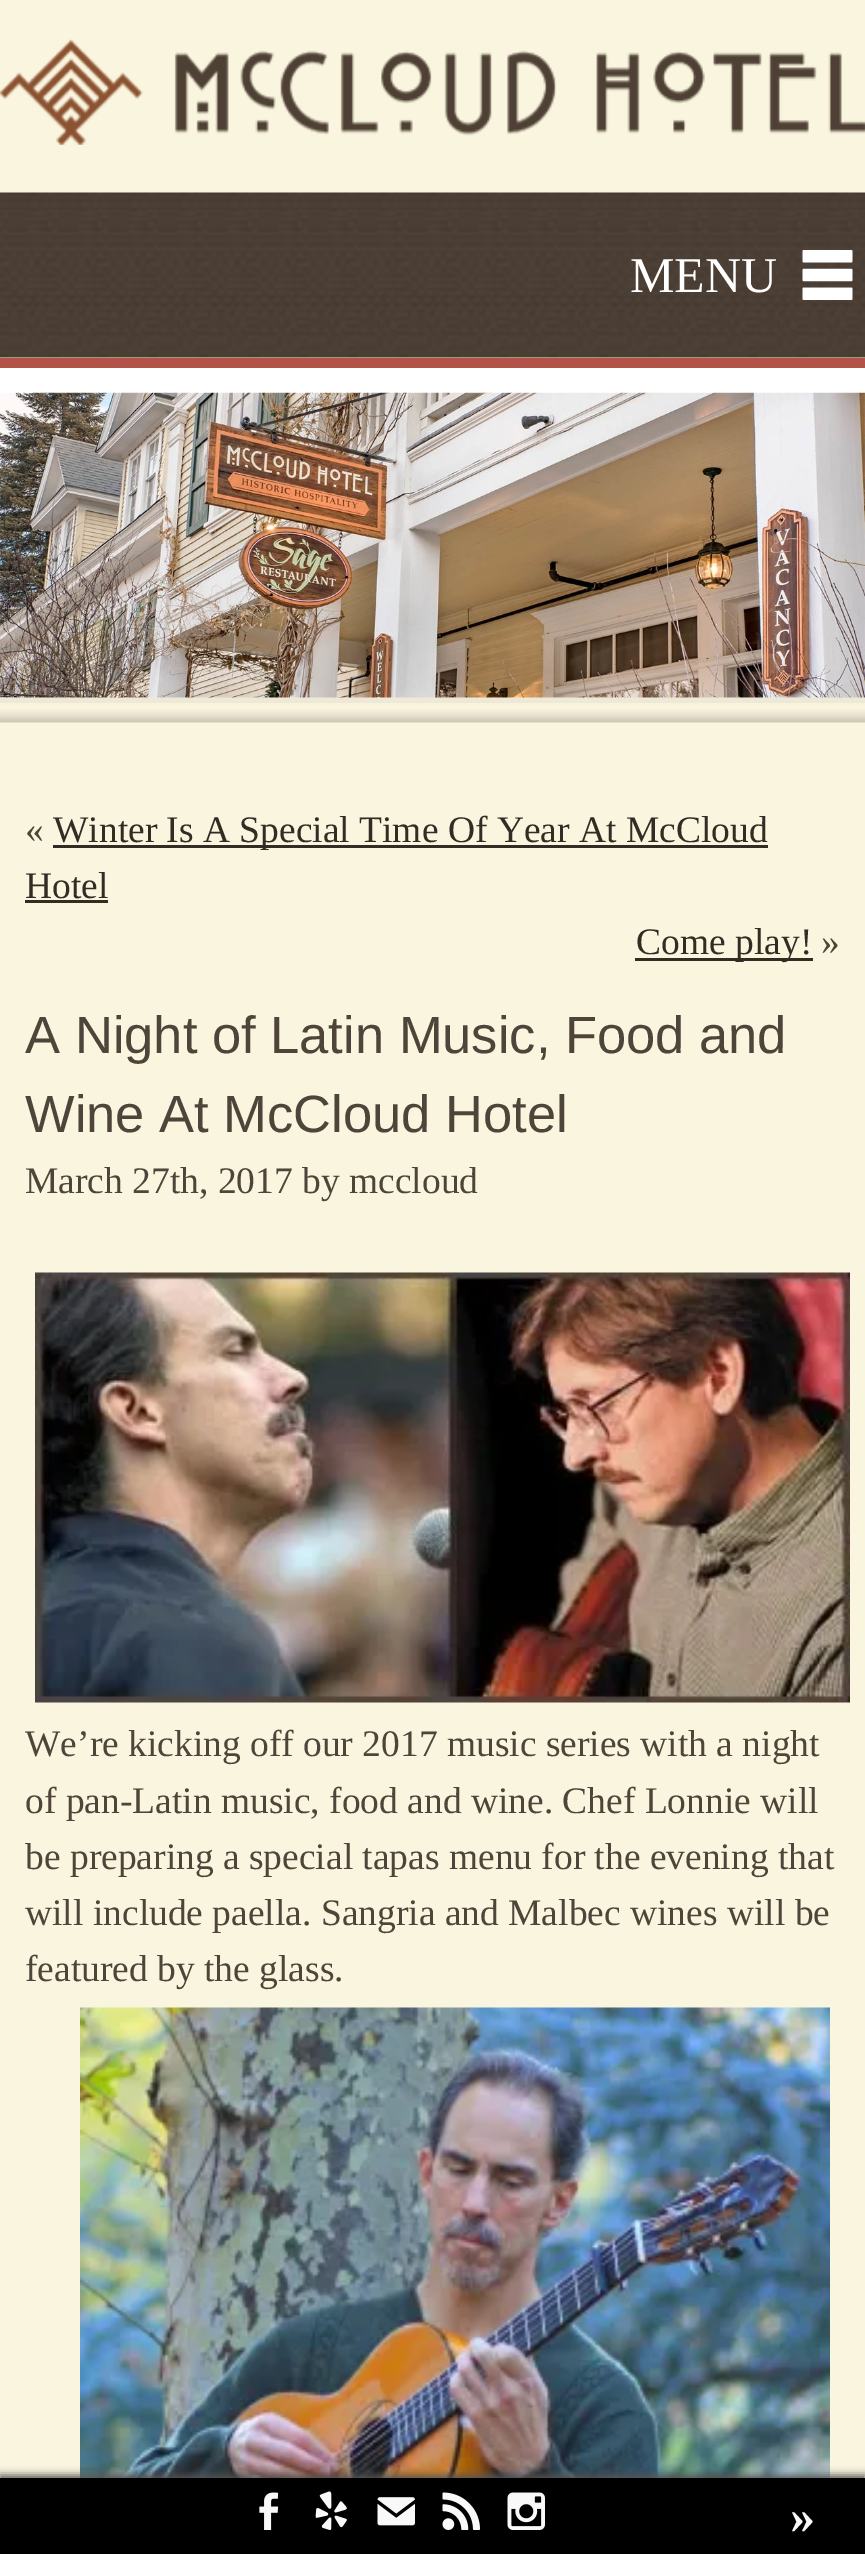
%!PS
<< /PageSize [865 2554] /PageUsesTransparency true >> setpagedevice
/C { dup -16 bitshift 255 div exch dup -8 bitshift 255 and 255 div exch 255 and 255 div setrgbcolor } def
/F { [ exch dup neg 0 0 3 -1 roll 0 0 ] selectfont } def
/T { moveto show } def
/R { rectfill } def
/A { dup .setfillconstantalpha .setstrokeconstantalpha } def
/Q { 5 dict begin { /r /h /w /y /x } { exch def } forall
  x r add y moveto x w add y 2 copy h add r arct x w add y h add x 1 index r arct
  x y h add x y r arct x y 2 copy exch w add exch r arct closepath end } def
/S { 12 dict begin { /a /b /q /h /w /y /x } { exch def } forall gsave /was 0 def
  9 -2 -9 { dup b mul 4 div /e exch def 1 sub .425 mul 2.718 exch exp 1 add a .99 .min exch div /now exch def
    1 1 now sub 1 was sub div sub A /was now def
    w h .min e 2 mul add 0 gt { x e sub y e sub w e 2 mul add h e 2 mul add
      q e add b .6 mul add w h .min 2 div e add .min 0 .max Q fill } if } for grestore end } def
/I { 5 dict begin { /h /w /y /x /name } { exch def } forall
  gsave x y translate w h scale
  w h 8 [w 0 0 h 0 0] name (r) file false 3 colorimage grestore end } def
0 .pushpdf14devicefilter
0 2554 translate 1 -1 scale
4 setmiterlimit
16#FFFFFF C
0 0 865 2554 R
16#F9F5DE C
0 0 865 358 R
(1.rgb) 0 192 865 166 I
16#B35249 C
0 358 865 10 R
(2.rgb) 0 39 865 106 I
/LiberationSerif-Regular 50 F
16#FFFFFF C
(MENU) 630 292 T
(3.rgb) 802 250 51 50 I
16#EEE9D6 C
0 697 865 6 R
(4.rgb) 0 392 865 306 I
16#F9F5DE C
0 722 865 1756 R
(5.rgb) 0 703 865 20 I
/LiberationSerif-Regular 37.5 F
16#4F443A C
(«) 25 842 T
16#332C25 C
53 845 715 3 R
(Winter Is A Special Time Of Year At McCloud) 53 842 T
(Hotel) 25 898 T
25 900 83 3 R
635 958 178 3 R
(Come play!) 636 954 T
16#4F443A C
(») 821 954 T
/LiberationSans-Regular 52.5 F
(A Night of Latin Music, Food and) 25 1053 T
(Wine At McCloud Hotel) 25 1132 T
/LiberationSerif-Regular 37.5 F
(March 27th, 2017 by mccloud) 25 1193 T
(6.rgb) 35 1272 815 431 I
(We’re kicking off our 2017 music series with a night) 25 1756 T
(of pan-Latin music, food and wine. Chef Lonnie will) 25 1813 T
(be preparing a special tapas menu for the evening that) 25 1869 T
(will include paella. Sangria and Malbec wines will be) 25 1925 T
(featured by the glass.) 25 1981 T
(7.rgb) 80 2007 750 471 I
16#555555 C
0 2475 865 78 0 4 1 S
16#000000 C
0 2478 865 76 R
(8.rgb) 259 2492 20 38 I
(9.rgb) 315 2491 32 39 I
(10.rgb) 377 2497 38 29 I
(11.rgb) 442 2492 38 38 I
(12.rgb) 507 2492 38 38 I
/LiberationSerif-Bold 50 F
16#F9F9F9 C
(») 790 2533 T
.poppdf14devicefilter showpage
